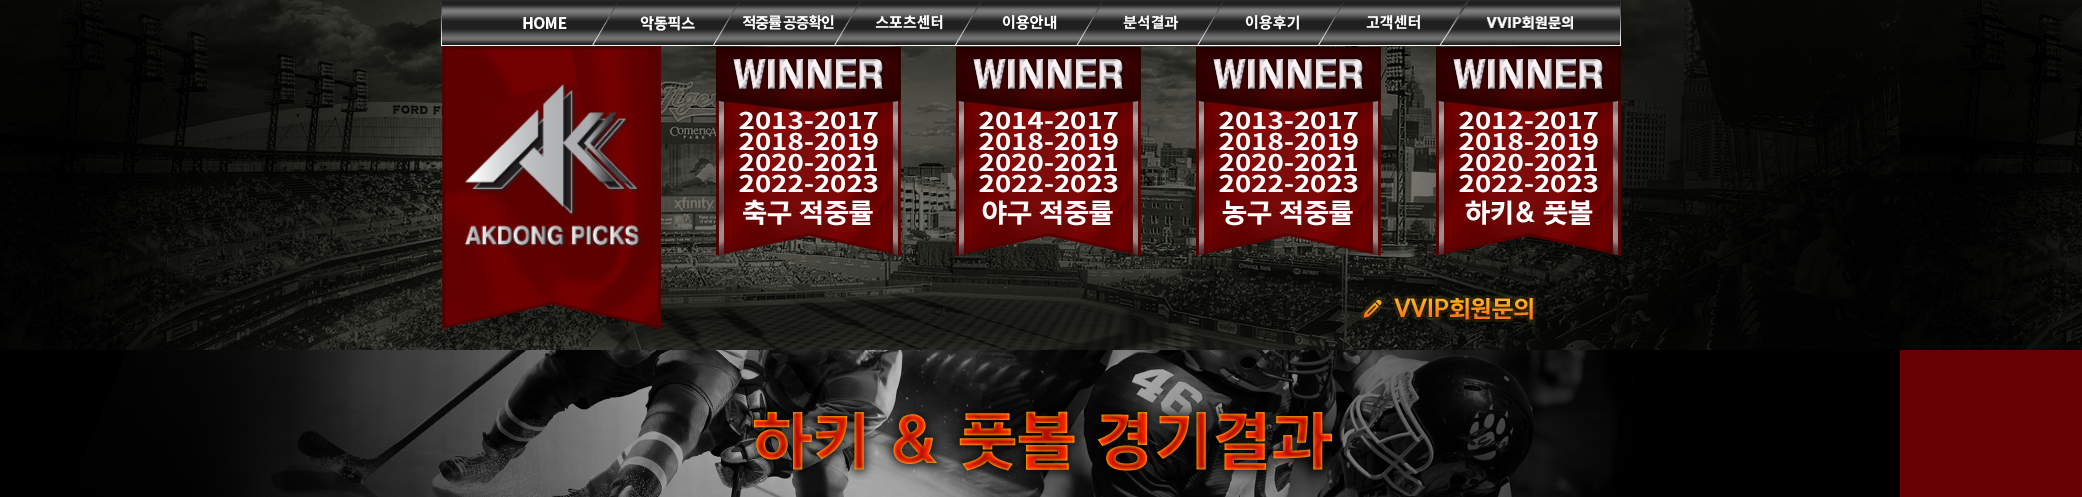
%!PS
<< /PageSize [2082 497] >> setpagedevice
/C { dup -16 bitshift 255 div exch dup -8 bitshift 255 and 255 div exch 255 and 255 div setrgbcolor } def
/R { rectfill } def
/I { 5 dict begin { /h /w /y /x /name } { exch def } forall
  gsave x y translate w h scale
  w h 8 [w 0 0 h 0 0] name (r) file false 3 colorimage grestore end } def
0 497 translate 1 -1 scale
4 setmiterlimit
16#670000 C
0 0 2082 497 R
(1.rgb) 0 0 2082 350 I
(2.rgb) 441 0 178 46 I
(3.rgb) 592 0 148 46 I
(4.rgb) 713 0 148 46 I
(5.rgb) 834 0 148 46 I
(6.rgb) 955 0 148 46 I
(7.rgb) 1076 0 148 46 I
(8.rgb) 1197 0 148 46 I
(9.rgb) 1318 0 150 46 I
(10.rgb) 1439 0 182 46 I
(11.rgb) 442 46 219 283 I
(12.rgb) 716 47 185 209 I
(13.rgb) 956 47 185 209 I
(14.rgb) 1196 47 185 209 I
(15.rgb) 1436 47 185 209 I
(16.rgb) 1360 295 176 28 I
(17.rgb) 0 350 1900 147 I
(18.rgb) 745 402 588 78 I
showpage
